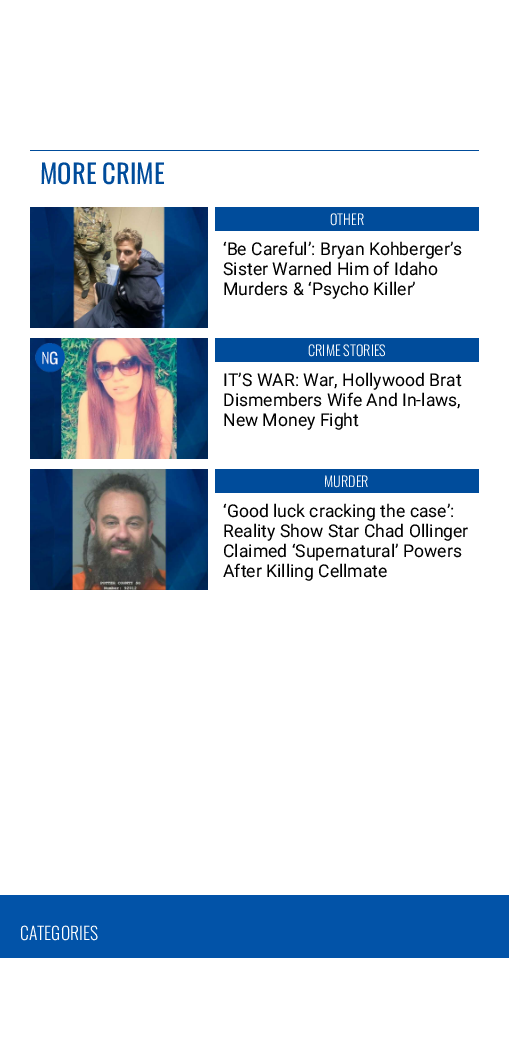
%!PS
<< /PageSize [509 1058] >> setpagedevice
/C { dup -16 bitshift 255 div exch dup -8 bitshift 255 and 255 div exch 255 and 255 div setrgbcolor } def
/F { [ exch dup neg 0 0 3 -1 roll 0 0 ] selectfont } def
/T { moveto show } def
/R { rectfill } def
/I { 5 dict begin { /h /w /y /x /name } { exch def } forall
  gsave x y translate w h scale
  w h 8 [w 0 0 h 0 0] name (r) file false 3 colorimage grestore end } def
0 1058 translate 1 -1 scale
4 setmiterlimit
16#FFFFFF C
0 0 509 1058 R
16#004C9B C
30 150 449 1 R
/Oswald-Regular 26.5 F
(MORE CRIME) 40 184 T
(1.rgb) 30 207 178 121 I
215 207 264 24 R
/Oswald-Light 14.25 F
16#FFFFFF C
(OTHER) 330 225 T
/Roboto-Regular 17.6 F
16#000000 C
(‘Be Careful’: Bryan Kohberger’s) 223 255 T
(Sister Warned Him of Idaho) 223 275 T
(Murders & ‘Psycho Killer’) 223 295 T
(2.rgb) 30 338 178 121 I
(3.rgb) 35 343 30 30 I
16#004C9B C
215 338 264 24 R
/Oswald-Light 14.25 F
16#FFFFFF C
(CRIME STORIES) 308 356 T
/Roboto-Regular 17.6 F
16#000000 C
(IT’S WAR: War, Hollywood Brat) 223 386 T
(Dismembers Wife And In-laws,) 223 406 T
(New Money Fight) 223 426 T
(4.rgb) 30 469 178 121 I
16#004C9B C
215 469 264 24 R
/Oswald-Light 14.25 F
16#FFFFFF C
(MURDER) 324 487 T
/Roboto-Regular 17.6 F
16#000000 C
(‘Good luck cracking the case’:) 223 517 T
(Reality Show Star Chad Ollinger) 223 537 T
(Claimed ‘Supernatural’ Powers) 223 557 T
(After Killing Cellmate) 223 577 T
16#0253A8 C
0 895 509 63 R
/Oswald-Light 17.6 F
16#FFFFFF C
(CATEGORIES) 20 940 T
showpage
